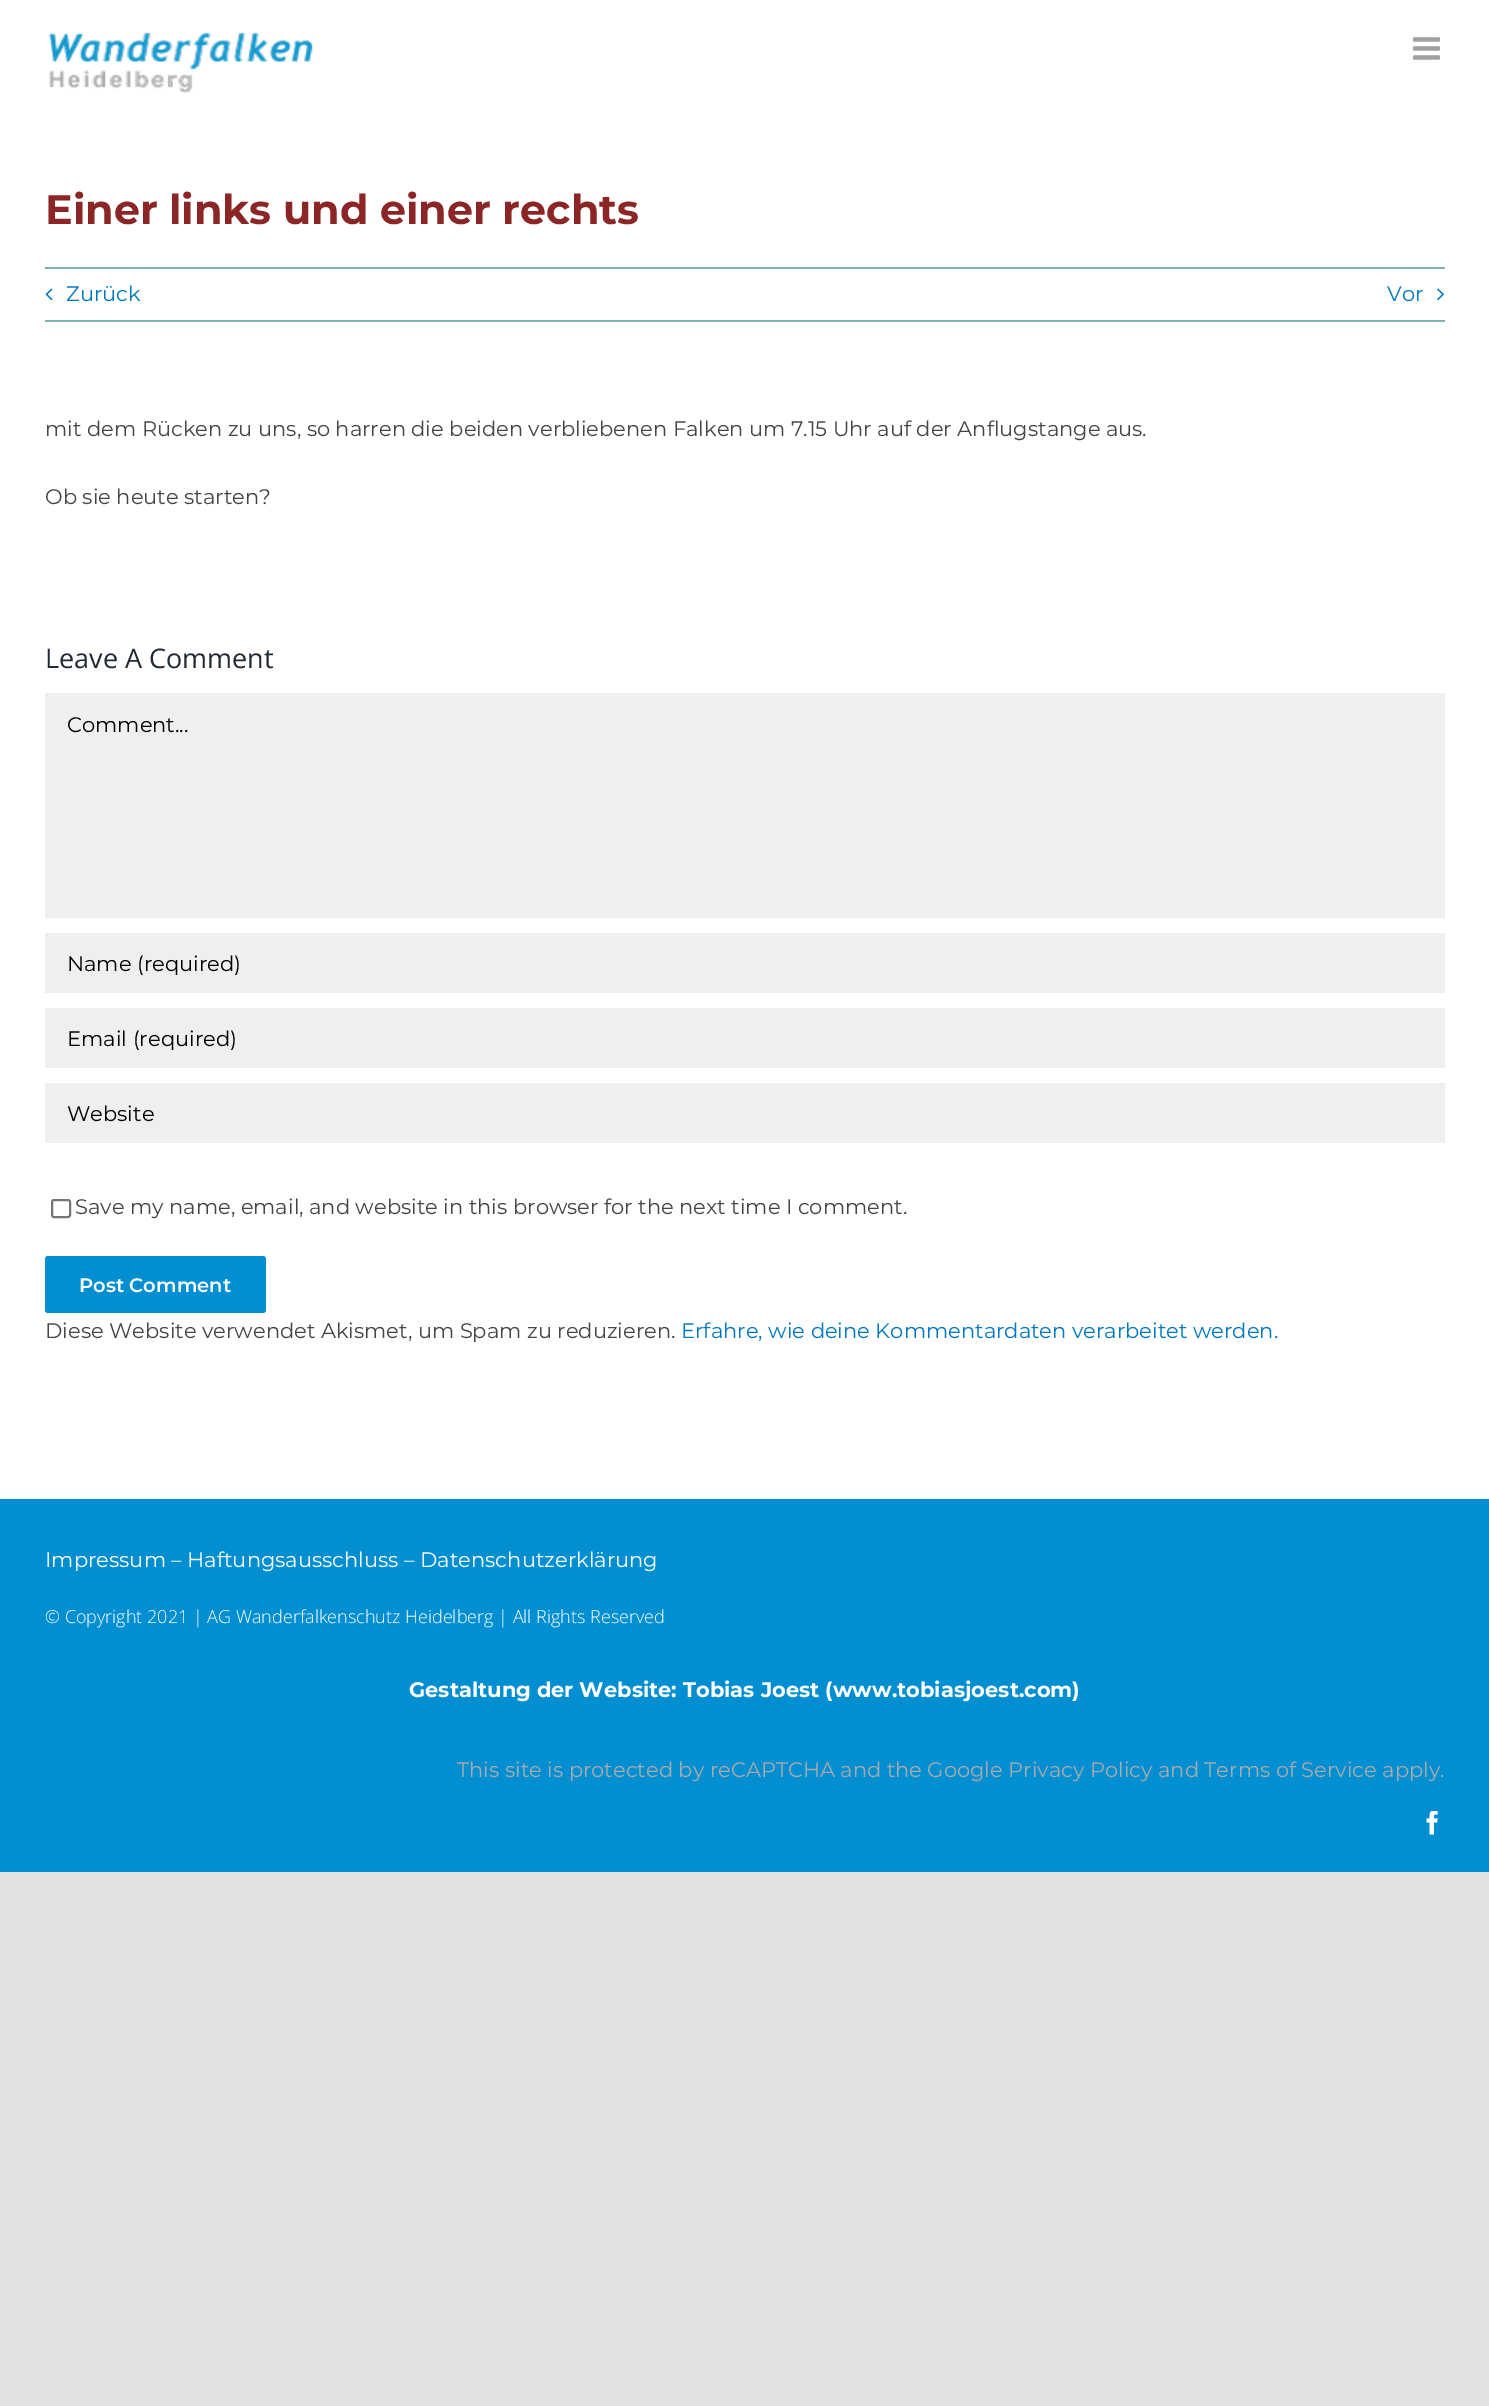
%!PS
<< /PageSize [1489 2406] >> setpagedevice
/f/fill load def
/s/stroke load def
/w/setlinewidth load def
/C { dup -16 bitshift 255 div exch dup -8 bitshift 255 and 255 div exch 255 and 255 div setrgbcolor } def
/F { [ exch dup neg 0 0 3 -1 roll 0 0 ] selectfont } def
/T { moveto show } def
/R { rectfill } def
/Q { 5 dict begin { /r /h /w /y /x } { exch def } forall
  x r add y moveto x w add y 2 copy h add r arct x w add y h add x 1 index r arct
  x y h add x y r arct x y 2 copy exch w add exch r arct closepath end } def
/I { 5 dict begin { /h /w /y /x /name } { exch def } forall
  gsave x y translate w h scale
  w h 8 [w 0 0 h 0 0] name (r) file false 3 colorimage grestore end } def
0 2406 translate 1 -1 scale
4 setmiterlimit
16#E2E2E2 C
0 0 1489 2406 R
16#FFFFFF C
0 0 1489 1499 R
(1.rgb) 49 32 264 62 I
(2.rgb) 1413 37 27 23 I
/Montserrat-Bold 41.25 F
16#8C2525 C
(Einer links und einer rechts) 45 224 T
16#7BB3AF C
45 267 1400 2 R
45 320 1400 2 R
(3.rgb) 45 288 8 13 I
/Montserrat-Regular 21 F
16#0179BF C
(Zurück) 66 301 T
(Vor) 1387 301 T
(4.rgb) 1437 288 7 13 I
16#454545 C
(mit dem Rücken zu uns, so harren die beiden verbliebenen Falken um 7.15 Uhr auf der Anflugstange aus.) 45 436 T
(Ob sie heute starten?) 45 504 T
/OpenSans-Regular 27 F
16#212934 C
(Leave A Comment) 45 668 T
16#EFEFEF C
45 693 1400 225 R
/Montserrat-Regular 21 F
16#000000 C
(Comment...) 67 732 T
16#EFEFEF C
45 933 1400 60 R
16#000000 C
(Name \(required\)) 67 971 T
16#EFEFEF C
45 1008 1400 60 R
16#000000 C
(Email \(required\)) 67 1046 T
16#EFEFEF C
45 1083 1400 60 R
16#000000 C
(Website) 67 1121 T
16#767676 C
2 w
52 1200 18 17 2 Q s
16#454545 C
(Save my name, email, and website in this browser for the next time I comment.) 75 1214 T
16#028FD1 C
45 1256 221 57 3 Q f
/Montserrat-SemiBold 19.5 F
16#FFFFFF C
(Post Comment) 79 1292 T
/Montserrat-Regular 21 F
16#454545 C
(Diese Website verwendet Akismet, um Spam zu reduzieren.) 45 1338 T
16#0179BF C
(Erfahre, wie deine Kommentardaten verarbeitet werden.) 681 1338 T
16#028FD1 C
0 1499 1489 373 R
16#FFFFFF C
(Impressum – Haftungsausschluss – Datenschutzerklärung) 45 1567 T
/OpenSans-Light 18 F
(© Copyright 2021 | AG Wanderfalkenschutz Heidelberg | All Rights Reserved) 45 1623 T
/Montserrat-Bold 21 F
(Gestaltung der Website: Tobias Joest \(www.tobiasjoest.com\)) 409 1697 T
/Montserrat-Regular 21 F
16#ABABAB C
(This site is protected by reCAPTCHA and the Google Privacy Policy and Terms of Service apply.) 457 1777 T
(5.rgb) 1426 1811 12 24 I
showpage
